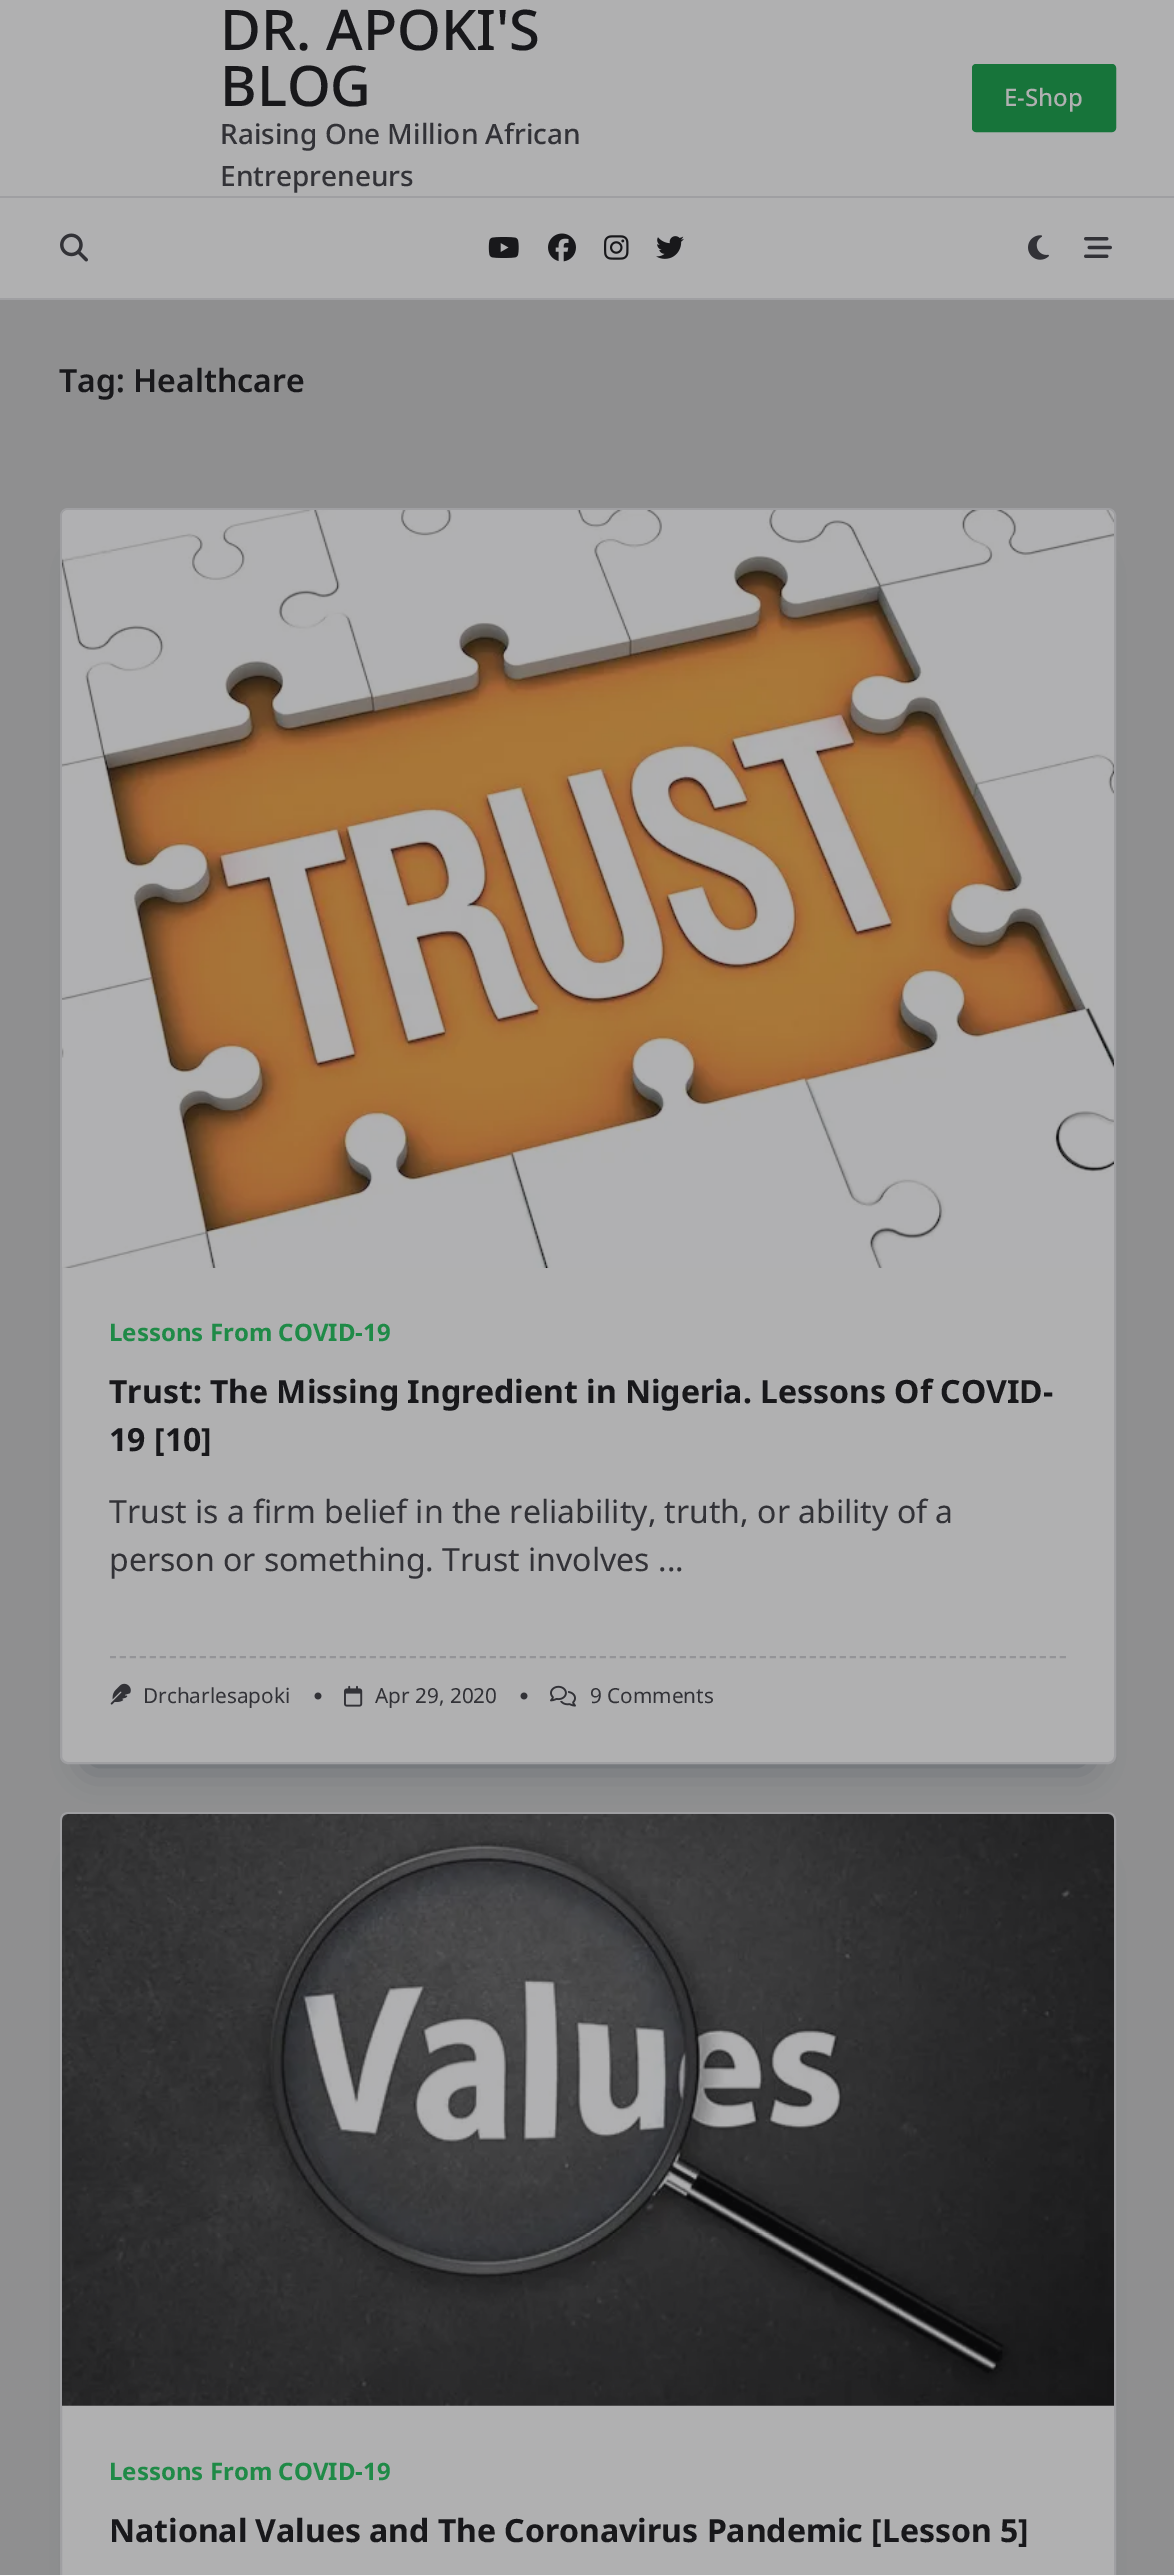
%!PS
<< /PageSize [1174 2575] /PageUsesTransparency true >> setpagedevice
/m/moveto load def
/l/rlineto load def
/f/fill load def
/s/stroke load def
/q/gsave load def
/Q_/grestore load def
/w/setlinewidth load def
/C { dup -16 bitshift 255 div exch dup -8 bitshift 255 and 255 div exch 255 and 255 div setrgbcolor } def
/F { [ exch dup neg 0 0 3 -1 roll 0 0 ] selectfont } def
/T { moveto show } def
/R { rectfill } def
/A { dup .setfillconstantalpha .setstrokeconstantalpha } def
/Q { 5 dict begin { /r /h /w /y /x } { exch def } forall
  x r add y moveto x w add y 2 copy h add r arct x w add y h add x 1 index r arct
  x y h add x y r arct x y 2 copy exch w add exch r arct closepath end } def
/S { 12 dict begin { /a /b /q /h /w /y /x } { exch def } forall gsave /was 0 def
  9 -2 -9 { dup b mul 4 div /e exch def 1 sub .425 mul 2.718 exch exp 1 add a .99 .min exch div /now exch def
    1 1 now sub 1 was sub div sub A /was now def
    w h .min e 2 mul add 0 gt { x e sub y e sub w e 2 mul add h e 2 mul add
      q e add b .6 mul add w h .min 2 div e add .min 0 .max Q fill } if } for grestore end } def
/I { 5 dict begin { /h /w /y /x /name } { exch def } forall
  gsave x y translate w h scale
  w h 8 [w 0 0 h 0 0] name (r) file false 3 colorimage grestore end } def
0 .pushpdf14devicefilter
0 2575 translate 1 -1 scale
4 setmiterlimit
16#8F8F90 C
0 0 1174 2575 R
16#B0B0B1 C
0 0 1174 196 R
16#9F9FA2 C
0 196 1174 2 R
/NotoSans-Medium 56 F
16#18181B C
(DR. APOKI'S) 220 50 T
(BLOG) 220 106 T
/NotoSans-Medium 28 F
16#323237 C
(Raising One Million African) 220 144 T
(Entrepreneurs) 220 186 T
16#17743A C
973 65 142 66 3 Q q f Q_
2 w
s
/NotoSans-Medium 24 F
16#B0B0B1 C
(E-Shop) 1004 106 T
0 198 1174 100 R
16#9F9FA2 C
0 298 1174 2 R
(1.rgb) 60 233 28 29 I
(2.rgb) 488 237 31 21 I
(3.rgb) 548 233 28 29 I
(4.rgb) 604 235 25 25 I
(5.rgb) 656 236 28 23 I
(6.rgb) 1028 235 21 25 I
(7.rgb) 1084 237 28 21 I
/NotoSans-SemiBold 32 F
16#18181B C
(Tag: Healthcare) 59 392 T
16#25313E C
90 568 996 1196 0 18 .45 S
16#B0B0B1 C
61 509 1054 1254 7 Q q f Q_
16#9F9FA2 C
s
(8.rgb) 62 510 1052 758 I
/NotoSans-Bold 24 F
16#1F8A47 C
(Lessons From COVID-19) 109 1341 T
/NotoSans-Bold 32 F
16#18181B C
(Trust: The Missing Ingredient in Nigeria. Lessons Of COVID-) 109 1403 T
(19 [10]) 109 1451 T
/NotoSans-Regular 32 F
16#323237 C
(Trust is a firm belief in the reliability, truth, or ability of a) 109 1523 T
(person or something. Trust involves) 109 1571 T
(...) 658 1571 T
16#949498 C
[6 4] 0 setdash
110 1657 m 956 0 l s
(9.rgb) 110 1683 21 22 I
/NotoSans-Regular 20.75 F
16#323237 C
(Drcharlesapoki) 143 1703 T
(10.rgb) 314 1692 8 8 I
(11.rgb) 344 1685 19 22 I
(Apr 29, 2020) 375 1703 T
(10.rgb) 520 1692 8 8 I
(12.rgb) 550 1685 26 22 I
(9 Comments) 590 1703 T
16#25313E C
90 1872 996 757 0 18 .45 S
16#B0B0B1 C
61 1813 1054 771 7 Q q f Q_
16#9F9FA2 C
[] 0 setdash
s
(13.rgb) 62 1814 1052 592 I
/NotoSans-Bold 24 F
16#1F8A47 C
(Lessons From COVID-19) 109 2480 T
/NotoSans-Bold 32 F
16#18181B C
(National Values and The Coronavirus Pandemic [Lesson 5]) 109 2542 T
.poppdf14devicefilter showpage
